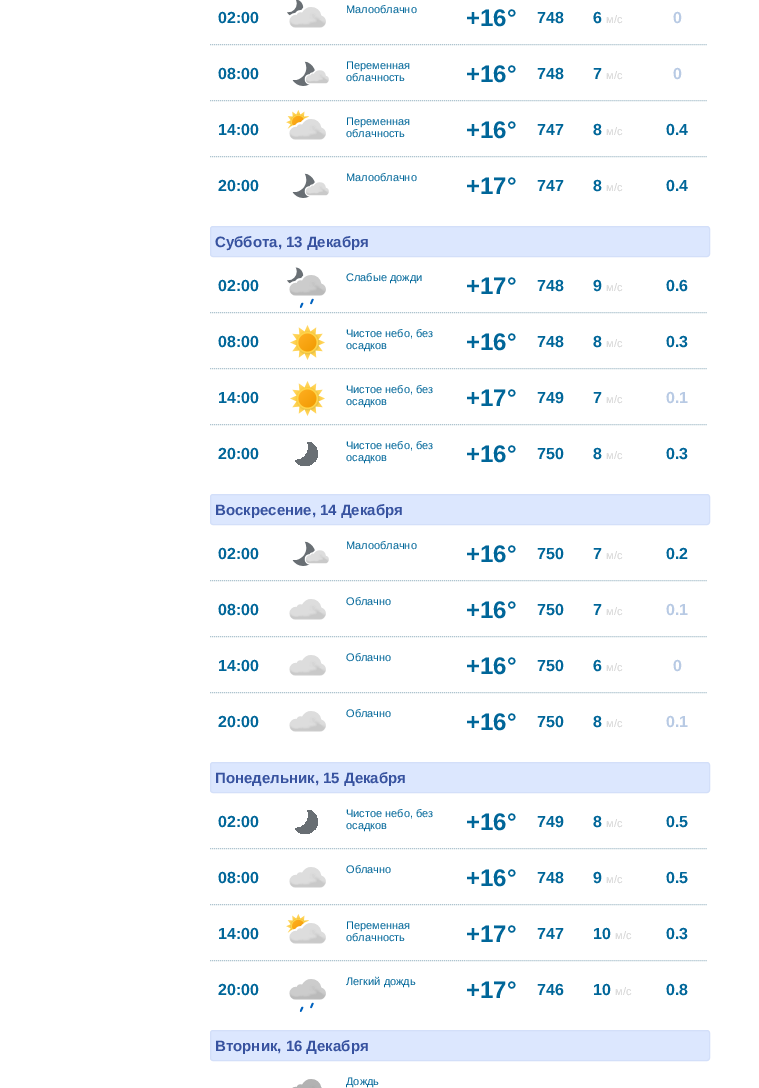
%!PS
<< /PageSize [759 1088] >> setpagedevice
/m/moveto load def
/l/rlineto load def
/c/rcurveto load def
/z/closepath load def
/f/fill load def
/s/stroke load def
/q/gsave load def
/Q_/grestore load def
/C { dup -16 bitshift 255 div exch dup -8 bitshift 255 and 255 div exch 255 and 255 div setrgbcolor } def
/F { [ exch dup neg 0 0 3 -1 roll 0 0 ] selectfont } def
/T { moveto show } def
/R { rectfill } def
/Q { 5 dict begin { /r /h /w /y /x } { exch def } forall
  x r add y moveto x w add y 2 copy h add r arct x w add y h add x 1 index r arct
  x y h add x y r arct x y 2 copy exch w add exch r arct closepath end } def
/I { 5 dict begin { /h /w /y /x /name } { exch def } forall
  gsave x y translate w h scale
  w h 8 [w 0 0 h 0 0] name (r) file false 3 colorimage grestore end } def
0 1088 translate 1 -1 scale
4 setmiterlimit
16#FFFFFF C
0 0 759 1088 R
16#AEC4CF C
[1 1] 0 setdash
210 44.5 m 498 0 l s
/LiberationSans-Bold 16 F
16#006699 C
(02:00) 218 23 T
(1.rgb) 287 0 39 28 I
/LiberationSans-Regular 11 F
(Малооблачно) 346 13 T
/LiberationSans-Bold 24 F
(+16°) 466 26 T
/LiberationSans-Bold 16 F
(748) 537 23 T
(6) 593 23 T
/LiberationSans-Regular 11 F
16#D3D3D3 C
(м/с) 606 23 T
/LiberationSans-Bold 16 F
16#B8CAE4 C
(0) 673 23 T
16#AEC4CF C
210 100.5 m 498 0 l s
16#006699 C
(08:00) 218 79 T
(2.rgb) 292 61 37 25 I
/LiberationSans-Regular 11 F
(Переменная) 346 69 T
(облачность) 346 81 T
/LiberationSans-Bold 24 F
(+16°) 466 82 T
/LiberationSans-Bold 16 F
(748) 537 79 T
(7) 593 79 T
/LiberationSans-Regular 11 F
16#D3D3D3 C
(м/с) 606 79 T
/LiberationSans-Bold 16 F
16#B8CAE4 C
(0) 673 79 T
16#AEC4CF C
210 156.5 m 498 0 l s
16#006699 C
(14:00) 218 135 T
(3.rgb) 286 110 40 30 I
/LiberationSans-Regular 11 F
(Переменная) 346 125 T
(облачность) 346 137 T
/LiberationSans-Bold 24 F
(+16°) 466 138 T
/LiberationSans-Bold 16 F
(747) 537 135 T
(8) 593 135 T
/LiberationSans-Regular 11 F
16#D3D3D3 C
(м/с) 606 135 T
/LiberationSans-Bold 16 F
16#006699 C
(0.4) 666 135 T
(20:00) 218 191 T
(2.rgb) 292 173 37 25 I
/LiberationSans-Regular 11 F
(Малооблачно) 346 181 T
/LiberationSans-Bold 24 F
(+17°) 466 194 T
/LiberationSans-Bold 16 F
(747) 537 191 T
(8) 593 191 T
/LiberationSans-Regular 11 F
16#D3D3D3 C
(м/с) 606 191 T
/LiberationSans-Bold 16 F
16#006699 C
(0.4) 666 191 T
16#DCE7FE C
210.5 226.5 499 30 2.5 Q q f Q_
16#D3DFF9 C
[] 0 setdash
s
/LiberationSans-Bold 15 F
16#37529F C
(Суббота, 13 Декабря) 215 247 T
16#AEC4CF C
[1 1] 0 setdash
210 312.5 m 498 0 l s
/LiberationSans-Bold 16 F
16#006699 C
(02:00) 218 291 T
(4.rgb) 287 267 39 41 I
/LiberationSans-Regular 11 F
(Слабые дожди) 346 281 T
/LiberationSans-Bold 24 F
(+17°) 466 294 T
/LiberationSans-Bold 16 F
(748) 537 291 T
(9) 593 291 T
/LiberationSans-Regular 11 F
16#D3D3D3 C
(м/с) 606 291 T
/LiberationSans-Bold 16 F
16#006699 C
(0.6) 666 291 T
16#AEC4CF C
210 368.5 m 498 0 l s
16#006699 C
(08:00) 218 347 T
(5.rgb) 290 325 35 35 I
/LiberationSans-Regular 11 F
(Чистое небо, без) 346 337 T
(осадков) 346 349 T
/LiberationSans-Bold 24 F
(+16°) 466 350 T
/LiberationSans-Bold 16 F
(748) 537 347 T
(8) 593 347 T
/LiberationSans-Regular 11 F
16#D3D3D3 C
(м/с) 606 347 T
/LiberationSans-Bold 16 F
16#006699 C
(0.3) 666 347 T
16#AEC4CF C
210 424.5 m 498 0 l s
16#006699 C
(14:00) 218 403 T
(5.rgb) 290 381 35 35 I
/LiberationSans-Regular 11 F
(Чистое небо, без) 346 393 T
(осадков) 346 405 T
/LiberationSans-Bold 24 F
(+17°) 466 406 T
/LiberationSans-Bold 16 F
(749) 537 403 T
(7) 593 403 T
/LiberationSans-Regular 11 F
16#D3D3D3 C
(м/с) 606 403 T
/LiberationSans-Bold 16 F
16#B8CAE4 C
(0.1) 666 403 T
16#006699 C
(20:00) 218 459 T
q
295 442 34 34 rectclip
q 307 441.5 m 5 8.5 -2.5 20 -12.5 18.5 c 8.5 14.5 30.5 .5 21 -13 c -2 -3 -5 -5 -8.5 -5.5 c z clip newpath
<< /ShadingType 2 /ColorSpace /DeviceRGB /Coords [295 454 318 443] /Extend [true true] /Function << /FunctionType 2 /Domain [0 1] /C0 [.408 .431 .451] /C1 [.416 .439 .459] /N 1 >> >> shfill Q_
Q_
/LiberationSans-Regular 11 F
(Чистое небо, без) 346 449 T
(осадков) 346 461 T
/LiberationSans-Bold 24 F
(+16°) 466 462 T
/LiberationSans-Bold 16 F
(750) 537 459 T
(8) 593 459 T
/LiberationSans-Regular 11 F
16#D3D3D3 C
(м/с) 606 459 T
/LiberationSans-Bold 16 F
16#006699 C
(0.3) 666 459 T
16#DCE7FE C
210.5 494.5 499 30 2.5 Q q f Q_
16#D3DFF9 C
[] 0 setdash
s
/LiberationSans-Bold 15 F
16#37529F C
(Воскресение, 14 Декабря) 215 515 T
16#AEC4CF C
[1 1] 0 setdash
210 580.5 m 498 0 l s
/LiberationSans-Bold 16 F
16#006699 C
(02:00) 218 559 T
(2.rgb) 292 541 37 25 I
/LiberationSans-Regular 11 F
(Малооблачно) 346 549 T
/LiberationSans-Bold 24 F
(+16°) 466 562 T
/LiberationSans-Bold 16 F
(750) 537 559 T
(7) 593 559 T
/LiberationSans-Regular 11 F
16#D3D3D3 C
(м/с) 606 559 T
/LiberationSans-Bold 16 F
16#006699 C
(0.2) 666 559 T
16#AEC4CF C
210 636.5 m 498 0 l s
16#006699 C
(08:00) 218 615 T
(6.rgb) 289 599 37 21 I
/LiberationSans-Regular 11 F
(Облачно) 346 605 T
/LiberationSans-Bold 24 F
(+16°) 466 618 T
/LiberationSans-Bold 16 F
(750) 537 615 T
(7) 593 615 T
/LiberationSans-Regular 11 F
16#D3D3D3 C
(м/с) 606 615 T
/LiberationSans-Bold 16 F
16#B8CAE4 C
(0.1) 666 615 T
16#AEC4CF C
210 692.5 m 498 0 l s
16#006699 C
(14:00) 218 671 T
(6.rgb) 289 655 37 21 I
/LiberationSans-Regular 11 F
(Облачно) 346 661 T
/LiberationSans-Bold 24 F
(+16°) 466 674 T
/LiberationSans-Bold 16 F
(750) 537 671 T
(6) 593 671 T
/LiberationSans-Regular 11 F
16#D3D3D3 C
(м/с) 606 671 T
/LiberationSans-Bold 16 F
16#B8CAE4 C
(0) 673 671 T
16#006699 C
(20:00) 218 727 T
(6.rgb) 289 711 37 21 I
/LiberationSans-Regular 11 F
(Облачно) 346 717 T
/LiberationSans-Bold 24 F
(+16°) 466 730 T
/LiberationSans-Bold 16 F
(750) 537 727 T
(8) 593 727 T
/LiberationSans-Regular 11 F
16#D3D3D3 C
(м/с) 606 727 T
/LiberationSans-Bold 16 F
16#B8CAE4 C
(0.1) 666 727 T
16#DCE7FE C
210.5 762.5 499 30 2.5 Q q f Q_
16#D3DFF9 C
[] 0 setdash
s
/LiberationSans-Bold 15 F
16#37529F C
(Понедельник, 15 Декабря) 215 783 T
16#AEC4CF C
[1 1] 0 setdash
210 848.5 m 498 0 l s
/LiberationSans-Bold 16 F
16#006699 C
(02:00) 218 827 T
q
295 810 34 34 rectclip
q 307 809.5 m 5 8.5 -2.5 20 -12.5 18.5 c 8.5 14.5 30.5 .5 21 -13 c -2 -3 -5 -5 -8.5 -5.5 c z clip newpath
<< /ShadingType 2 /ColorSpace /DeviceRGB /Coords [295 822 318 811] /Extend [true true] /Function << /FunctionType 2 /Domain [0 1] /C0 [.408 .431 .451] /C1 [.416 .439 .459] /N 1 >> >> shfill Q_
Q_
/LiberationSans-Regular 11 F
(Чистое небо, без) 346 817 T
(осадков) 346 829 T
/LiberationSans-Bold 24 F
(+16°) 466 830 T
/LiberationSans-Bold 16 F
(749) 537 827 T
(8) 593 827 T
/LiberationSans-Regular 11 F
16#D3D3D3 C
(м/с) 606 827 T
/LiberationSans-Bold 16 F
16#006699 C
(0.5) 666 827 T
16#AEC4CF C
210 904.5 m 498 0 l s
16#006699 C
(08:00) 218 883 T
(6.rgb) 289 867 37 21 I
/LiberationSans-Regular 11 F
(Облачно) 346 873 T
/LiberationSans-Bold 24 F
(+16°) 466 886 T
/LiberationSans-Bold 16 F
(748) 537 883 T
(9) 593 883 T
/LiberationSans-Regular 11 F
16#D3D3D3 C
(м/с) 606 883 T
/LiberationSans-Bold 16 F
16#006699 C
(0.5) 666 883 T
16#AEC4CF C
210 960.5 m 498 0 l s
16#006699 C
(14:00) 218 939 T
(3.rgb) 286 914 40 30 I
/LiberationSans-Regular 11 F
(Переменная) 346 929 T
(облачность) 346 941 T
/LiberationSans-Bold 24 F
(+17°) 466 942 T
/LiberationSans-Bold 16 F
(747) 537 939 T
(10) 593 939 T
/LiberationSans-Regular 11 F
16#D3D3D3 C
(м/с) 615 939 T
/LiberationSans-Bold 16 F
16#006699 C
(0.3) 666 939 T
(20:00) 218 995 T
(7.rgb) 289 979 37 33 I
/LiberationSans-Regular 11 F
(Легкий дождь) 346 985 T
/LiberationSans-Bold 24 F
(+17°) 466 998 T
/LiberationSans-Bold 16 F
(746) 537 995 T
(10) 593 995 T
/LiberationSans-Regular 11 F
16#D3D3D3 C
(м/с) 615 995 T
/LiberationSans-Bold 16 F
16#006699 C
(0.8) 666 995 T
16#DCE7FE C
210.5 1030.5 499 30 2.5 Q q f Q_
16#D3DFF9 C
[] 0 setdash
s
/LiberationSans-Bold 15 F
16#37529F C
(Вторник, 16 Декабря) 215 1051 T
(8.rgb) 292 1079 30 9 I
/LiberationSans-Regular 11 F
16#006699 C
(Дождь) 346 1085 T
showpage
